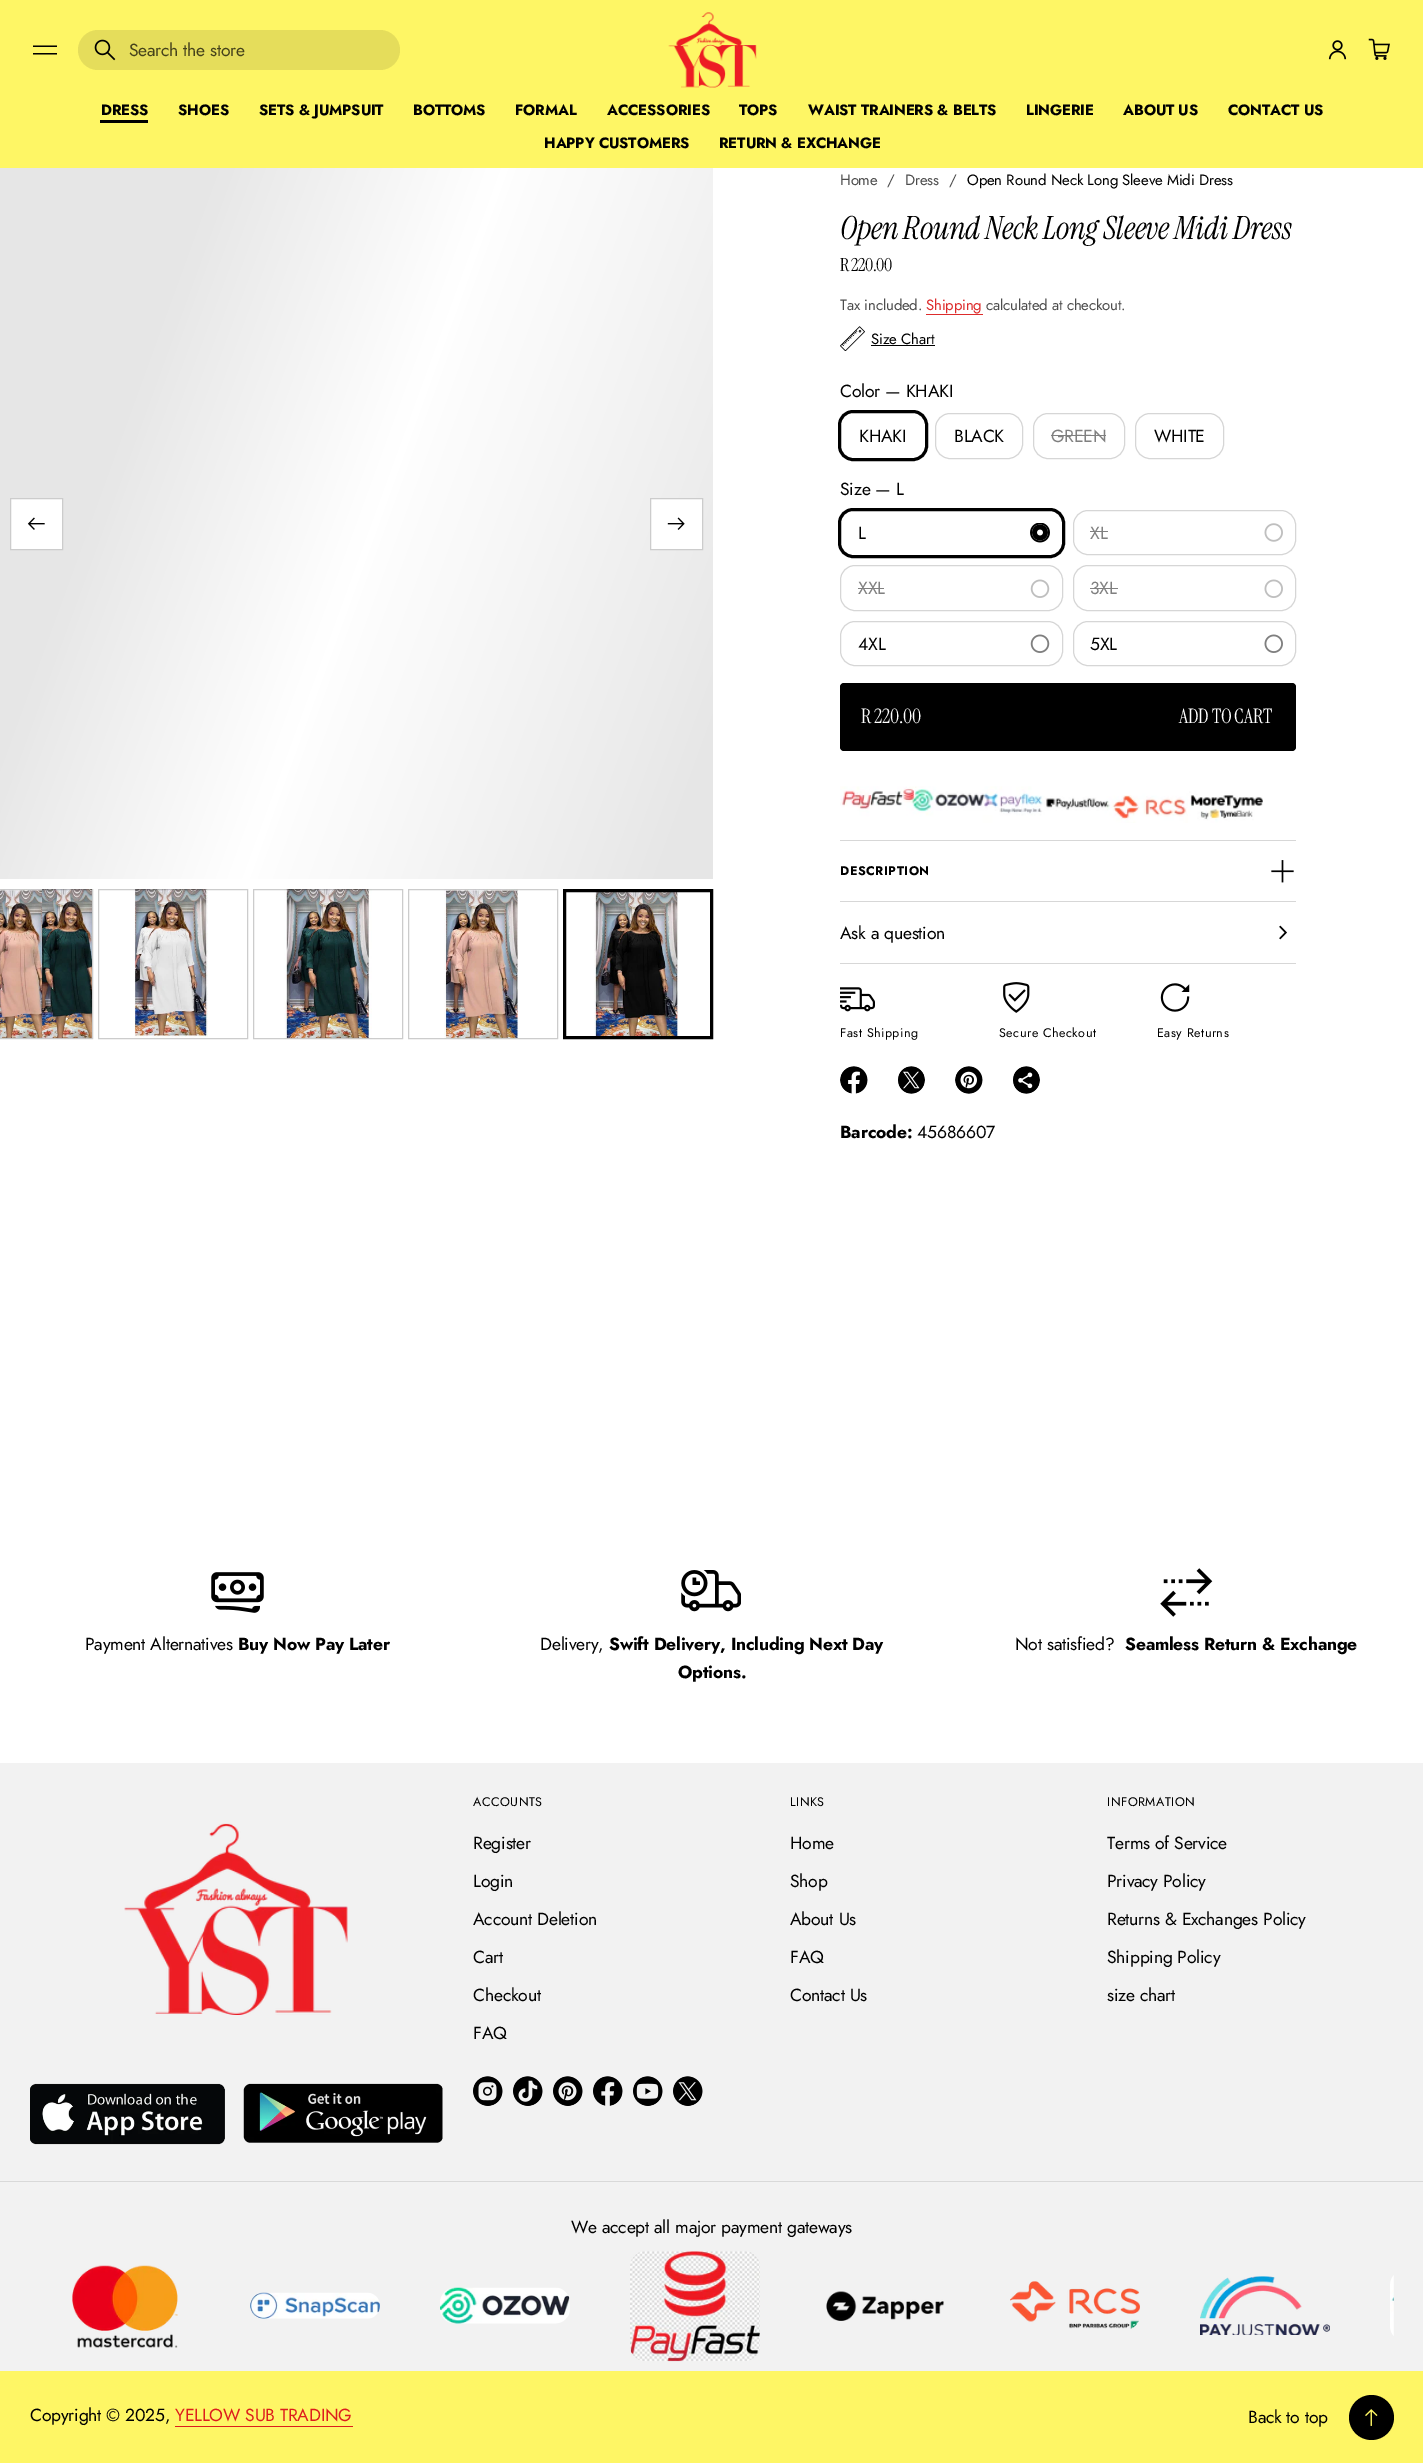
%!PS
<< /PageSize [1423 2463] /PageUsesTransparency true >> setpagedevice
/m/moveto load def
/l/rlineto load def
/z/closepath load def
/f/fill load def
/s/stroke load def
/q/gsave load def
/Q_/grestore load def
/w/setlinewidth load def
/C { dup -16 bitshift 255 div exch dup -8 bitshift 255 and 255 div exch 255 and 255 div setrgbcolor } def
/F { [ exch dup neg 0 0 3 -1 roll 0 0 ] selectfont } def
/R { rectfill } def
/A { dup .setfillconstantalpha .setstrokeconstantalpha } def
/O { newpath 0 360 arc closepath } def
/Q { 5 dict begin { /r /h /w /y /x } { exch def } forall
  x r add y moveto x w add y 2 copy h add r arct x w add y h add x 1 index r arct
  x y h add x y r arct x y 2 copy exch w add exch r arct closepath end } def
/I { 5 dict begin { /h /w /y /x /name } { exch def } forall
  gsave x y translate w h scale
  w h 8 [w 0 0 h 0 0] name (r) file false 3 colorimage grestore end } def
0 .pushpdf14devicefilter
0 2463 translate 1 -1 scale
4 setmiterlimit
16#FFFFFF C
0 0 1423 2463 R
16#FEF665 C
0 0 1423 168 R
16#000000 C
33 45.5 m 0 1.5 l 24 0 l 0 -1.5 l z 33 53 m 0 1.5 l 24 0 l 0 -1.5 l z f
16#E5DD5B C
78 30 322 40 20 Q f
(1.rgb) 94 39 22 22 I
/Jost-Regular 17.5 F
16#45421B C
129 56 m -.2 0 (Search the store) ashow
(2.rgb) 668 12 89 76 I
(3.rgb) 1328 40 19 20 I
(4.rgb) 1368 38 22 22 I
/Jost-Bold 14.9 F
16#000000 C
101 115 m -.15 0 (DRESS) ashow
100 120 48 3 R
178 115 m -.15 0 (SHOES) ashow
259 115 m -.15 0 (SETS & JUMPSUIT) ashow
413 115 m -.15 0 (BOTTOMS) ashow
515 115 m -.15 0 (FORMAL) ashow
607 115 m -.15 0 (ACCESSORIES) ashow
739 115 m -.15 0 (TOPS) ashow
808 115 m -.15 0 (WAIST TRAINERS & BELTS) ashow
1026 115 m -.15 0 (LINGERIE) ashow
1123 115 m -.15 0 (ABOUT US) ashow
1228 115 m -.15 0 (CONTACT US) ashow
544 148 m -.15 0 (HAPPY CUSTOMERS) ashow
719 148 m -.15 0 (RETURN & EXCHANGE) ashow
q 0 168 m 713 0 l 0 711 l -713 0 l z clip newpath
<< /ShadingType 2 /ColorSpace /DeviceRGB /Coords [-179 612 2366 1539] /Extend [true true] /Function << /FunctionType 3 /Domain [0 1] /Functions [<< /FunctionType 2 /Domain [0 1] /C0 [.902 .902 .902] /C1 [.902 .902 .902] /N 1 >> << /FunctionType 2 /Domain [0 1] /C0 [.902 .902 .902] /C1 [1 1 1] /N 1 >> << /FunctionType 2 /Domain [0 1] /C0 [1 1 1] /C1 [.902 .902 .902] /N 1 >> << /FunctionType 2 /Domain [0 1] /C0 [.902 .902 .902] /C1 [.902 .902 .902] /N 1 >>] /Bounds [.08 .18 .33] /Encode [0 1 0 1 0 1 0 1] >> >> shfill Q_
16#FFFFFF C
10.5 498.5 m 52 0 l 0 51 l -52 0 l z q f Q_
16#CCCCCC C
s
(5.rgb) 27 517 18 13 I
16#FFFFFF C
650.5 498.5 m 52 0 l 0 51 l -52 0 l z q f Q_
16#CCCCCC C
s
(6.rgb) 667 517 18 13 I
(7.rgb) 0 889 92 150 I
0.2 A
16#000000 C
-.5 889.5 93 149 rectstroke
1 A
(8.rgb) 134 889 74 149 I
0.2 A
98.5 889.5 149 149 rectstroke
1 A
(9.rgb) 284 889 88 150 I
0.2 A
253.5 889.5 149 149 rectstroke
1 A
(10.rgb) 444 889 74 150 I
0.2 A
408.5 889.5 149 149 rectstroke
1 A
(11.rgb) 594 892 85 144 I
3 w
564.5 890.5 147 147 rectstroke
/Jost-Regular 14.9 F
16#4D4D4D C
840 185 m -.15 0 (Home) ashow
887 185 m -.15 0 (/) ashow
905 185 m -.15 0 (Dress) ashow
949 185 m -.15 0 (/) ashow
16#000000 C
967 185 m -.15 0 (Open Round Neck Long Sleeve Midi Dress) ashow
/InstrumentSerif-Italic 32 F
840 239 m -.3 0 (Open Round Neck Long Sleeve Midi Dress) ashow
/InstrumentSerif-Regular 18 F
840 271 m -.5 0 (R 220.00) ashow
/Jost-Regular 14.9 F
16#4D4D4D C
840 310 m -.15 0 (Tax included.) ashow
16#DD2C2C C
926 310 m -.15 0 (Shipping) ashow
926 314 57 1 R
16#4D4D4D C
986 310 m -.15 0 (calculated at checkout.) ashow
(12.rgb) 840 326 25 25 I
16#000000 C
871 344 m -.15 0 (Size Chart) ashow
871 345 64 1 R
/Jost-Regular 17.5 F
840 397 m -.2 0 (Color — KHAKI) ashow
839.5 411.5 87 48 13.5 Q s
859 442 m -.2 0 (KHAKI) ashow
16#D6D6D6 C
1 w
935.5 413.5 87 45 14.5 Q s
16#000000 C
954 442 m -.2 0 (BLACK) ashow
16#D6D6D6 C
1033.5 413.5 91 45 14.5 Q s
16#808080 C
1051 442 m -.2 0 (GREEN) ashow
1051 435 55 1 R
16#D6D6D6 C
1135.5 413.5 88 45 14.5 Q s
16#000000 C
1154 442 m -.2 0 (WHITE) ashow
840 495 m -.2 0 (Size — L) ashow
3 w
839.5 509.5 224 47 13.5 Q s
858 539 m -.2 0 (L) ashow
(13.rgb) 1030 523 20 20 I
16#D6D6D6 C
1 w
1073.5 510.5 222 44 14.5 Q s
16#808080 C
1090 539 m -.2 0 (XL) ashow
1090 531 18 1 R
(14.rgb) 1264 523 19 19 I
16#D6D6D6 C
840.5 565.5 222 45 14.5 Q s
16#808080 C
858 594 m -.2 0 (XXL) ashow
858 588 26 1 R
(15.rgb) 1030 579 20 19 I
16#D6D6D6 C
1073.5 565.5 222 45 14.5 Q s
16#808080 C
1090 594 m -.2 0 (3XL) ashow
1090 588 28 1 R
(16.rgb) 1264 579 19 19 I
16#D6D6D6 C
840.5 621.5 222 44 14.5 Q s
16#000000 C
858 650 m -.2 0 (4XL) ashow
(17.rgb) 1030 634 20 19 I
16#D6D6D6 C
1073.5 621.5 222 44 14.5 Q s
16#000000 C
1090 650 m -.2 0 (5XL) ashow
(18.rgb) 1264 634 19 19 I
840 683 456 68 4 Q f
/InstrumentSerif-Regular 20 F
16#FFFFFF C
861 723 m -.25 0 (R 220.00) ashow
1179 723 m -.25 0 (ADD TO CART) ashow
(19.rgb) 840 786 423 37 I
16#D7D7D7 C
840 840 456 1 R
840 901 456 1 R
/Jost-Bold 12.5 F
16#000000 C
840 875 m .5 0 (DESCRIPTION) ashow
(20.rgb) 1271 860 23 23 I
16#D7D7D7 C
840 963 456 1 R
/Jost-Regular 17.5 F
16#000000 C
840 939 m -.2 0 (Ask a question) ashow
(21.rgb) 1279 925 8 15 I
(22.rgb) 840 987 35 25 I
/Jost-Regular 12.5 F
840 1037 m .5 0 (Fast Shipping) ashow
(23.rgb) 1003 982 27 31 I
999 1037 m .5 0 (Secure Checkout) ashow
(24.rgb) 1160 983 30 29 I
1157 1037 m .5 0 (Easy Returns) ashow
(25.rgb) 840 1066 28 28 I
(26.rgb) 898 1066 27 28 I
(27.rgb) 955 1066 28 28 I
(28.rgb) 1013 1066 27 28 I
/Jost-Bold 17.5 F
840 1138 m -.2 0 (Barcode:) ashow
/Jost-Regular 17.5 F
917 1138 m -.2 0 (45686607) ashow
(29.rgb) 211 1572 53 41 I
85 1650 m -.2 0 (Payment Alternatives) ashow
/Jost-Bold 17.5 F
238 1650 m -.2 0 (Buy Now Pay Later) ashow
(30.rgb) 681 1570 60 42 I
/Jost-Regular 17.5 F
540 1650 m -.2 0 (Delivery,) ashow
/Jost-Bold 17.5 F
609 1650 m -.2 0 (Swift Delivery, Including Next Day) ashow
678 1678 m -.2 0 (Options.) ashow
(31.rgb) 1160 1568 53 49 I
/Jost-Regular 17.5 F
1015 1650 m -.2 0 (Not satisfied?) ashow
/Jost-Bold 17.5 F
1125 1650 m -.2 0 (Seamless Return & Exchange) ashow
16#F2F2F2 C
0 1763 1423 608 R
16#D9D9D9 C
0 2181 1423 1 R
(32.rgb) 124 1823 224 192 I
/Jost-Regular 12.5 F
16#000000 C
473 1806 m .5 0 (ACCOUNTS) ashow
/Jost-Regular 17.5 F
473 1849 m -.2 0 (Register) ashow
473 1887 m -.2 0 (Login) ashow
473 1925 m -.2 0 (Account Deletion) ashow
473 1963 m -.2 0 (Cart) ashow
473 2001 m -.2 0 (Checkout) ashow
473 2039 m -.2 0 (FAQ) ashow
/Jost-Regular 12.5 F
790 1806 m .5 0 (LINKS) ashow
/Jost-Regular 17.5 F
790 1849 m -.2 0 (Home) ashow
790 1887 m -.2 0 (Shop) ashow
790 1925 m -.2 0 (About Us) ashow
790 1963 m -.2 0 (FAQ) ashow
790 2001 m -.2 0 (Contact Us) ashow
/Jost-Regular 12.5 F
1107 1806 m .5 0 (INFORMATION) ashow
/Jost-Regular 17.5 F
1107 1849 m -.2 0 (Terms of Service) ashow
1107 1887 m -.2 0 (Privacy Policy) ashow
1107 1925 m -.2 0 (Returns & Exchanges Policy) ashow
1107 1963 m -.2 0 (Shipping Policy) ashow
1107 2001 m -.2 0 (size chart) ashow
(33.rgb) 30 2083 413 62 I
(34.rgb) 473 2076 30 30 I
(35.rgb) 513 2076 30 30 I
(36.rgb) 553 2076 30 30 I
(37.rgb) 593 2076 30 30 I
(38.rgb) 633 2076 30 30 I
(39.rgb) 673 2076 30 30 I
571 2233 m -.2 0 (We accept all major payment gateways) ashow
(40.rgb) 72 2265 106 83 I
(41.rgb) 250 2292 130 27 I
(42.rgb) 440 2287 130 37 I
(43.rgb) 630 2251 130 111 I
(44.rgb) 826 2291 118 30 I
(45.rgb) 1010 2281 130 48 I
(46.rgb) 1200 2276 130 59 I
(47.rgb) 1390 2275 4 61 I
16#FEF665 C
0 2371 1423 92 R
16#000000 C
30 2421 m -.2 0 (Copyright © 2025,) ashow
16#DD1D1D C
175 2421 m -.2 0 (YELLOW SUB TRADING) ashow
175 2426 178 1 R
16#000000 C
1248 2423 m -.2 0 (Back to top) ashow
1371.5 2417.5 22.5 O f
(48.rgb) 1365 2409 13 17 I
.poppdf14devicefilter showpage
